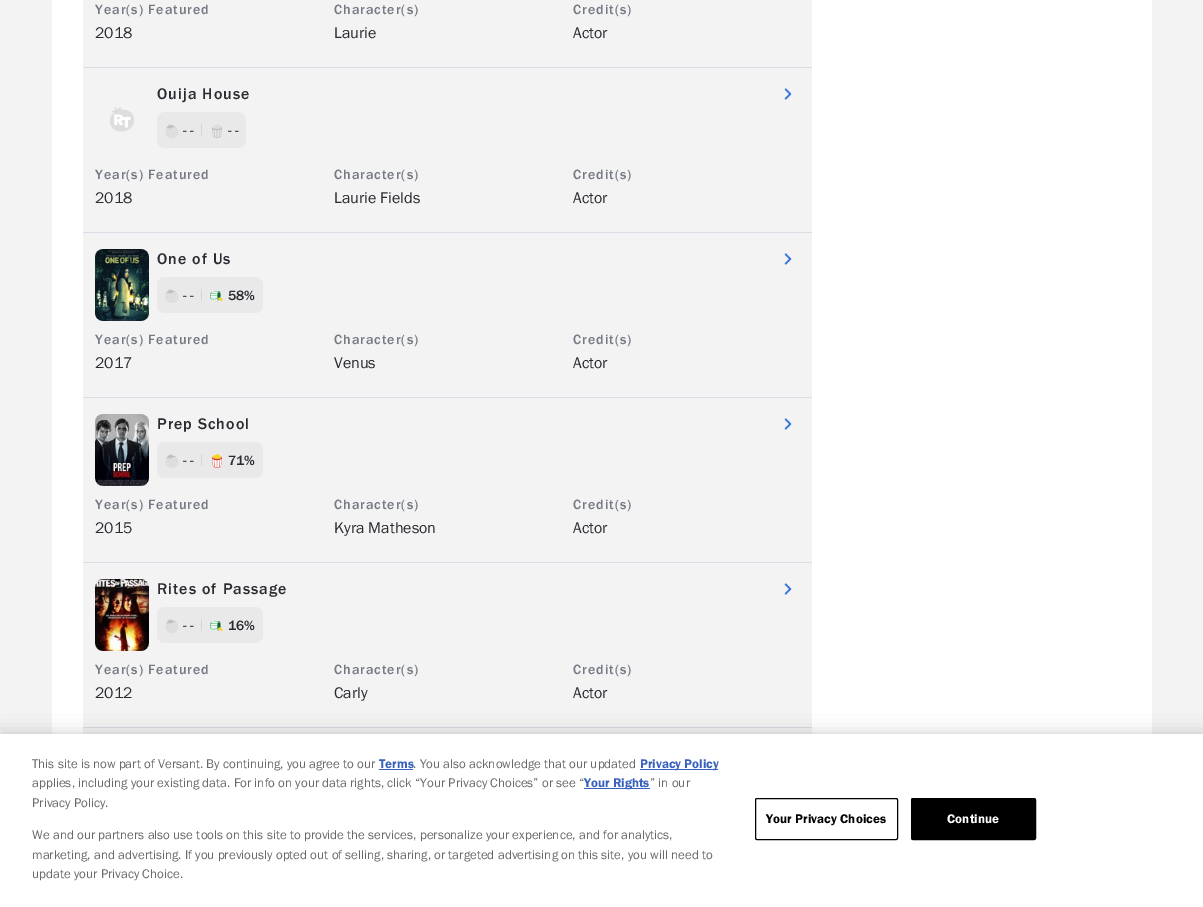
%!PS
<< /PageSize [1203 907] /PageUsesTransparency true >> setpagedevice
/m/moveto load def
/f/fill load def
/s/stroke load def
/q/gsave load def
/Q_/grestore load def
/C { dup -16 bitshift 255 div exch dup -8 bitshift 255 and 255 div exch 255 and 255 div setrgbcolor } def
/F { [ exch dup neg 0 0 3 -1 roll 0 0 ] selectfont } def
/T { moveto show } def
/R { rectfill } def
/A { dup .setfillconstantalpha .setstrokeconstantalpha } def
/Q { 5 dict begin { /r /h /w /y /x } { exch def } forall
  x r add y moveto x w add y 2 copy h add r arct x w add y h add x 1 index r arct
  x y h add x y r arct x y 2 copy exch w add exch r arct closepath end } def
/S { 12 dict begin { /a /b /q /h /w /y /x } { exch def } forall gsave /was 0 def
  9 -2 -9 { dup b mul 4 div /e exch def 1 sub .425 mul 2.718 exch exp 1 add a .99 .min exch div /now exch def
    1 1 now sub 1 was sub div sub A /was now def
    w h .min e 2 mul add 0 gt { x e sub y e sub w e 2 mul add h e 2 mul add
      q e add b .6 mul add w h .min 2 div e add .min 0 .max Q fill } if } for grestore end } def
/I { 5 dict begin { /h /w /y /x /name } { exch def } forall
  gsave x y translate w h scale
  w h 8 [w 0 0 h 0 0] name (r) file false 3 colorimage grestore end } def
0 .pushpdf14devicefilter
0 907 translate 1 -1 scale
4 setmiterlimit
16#F3F3F3 C
0 0 1203 907 R
16#FFFFFF C
52 0 1100 734 R
16#F3F3F3 C
83 0 729 734 R
16#DCDCE6 C
83 67 729 1 R
/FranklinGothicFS-Medium 14 F
16#757A84 C
95 14 m 1 0 (Year\(s\) Featured) ashow
/FranklinGothicFS-Regular 16 F
16#2A2C32 C
(2018) 95 38 T
/FranklinGothicFS-Medium 14 F
16#757A84 C
334 14 m 1 0 (Character\(s\)) ashow
/FranklinGothicFS-Regular 16 F
16#2A2C32 C
(Laurie) 334 38 T
/FranklinGothicFS-Medium 14 F
16#757A84 C
573 14 m 1 0 (Credit\(s\)) ashow
/FranklinGothicFS-Regular 16 F
16#2A2C32 C
(Actor) 573 38 T
16#DCDCE6 C
83 232 729 1 R
/FranklinGothicFS-Medium 16 F
16#2A2C32 C
157 99 m 1 0 (Ouija House) ashow
16#E9E9EA C
157 112 89 36 8 Q f
(1.rgb) 165 124 14 14 I
/FranklinGothicFS-Medium 14 F
16#505257 C
(- -) 183 135 T
16#D4D5D6 C
201 124 1 12 R
(2.rgb) 211 124 12 14 I
16#505257 C
(- -) 228 135 T
(3.rgb) 784 88 8 12 I
(4.rgb) 110 107 25 25 I
16#757A84 C
95 179 m 1 0 (Year\(s\) Featured) ashow
/FranklinGothicFS-Regular 16 F
16#2A2C32 C
(2018) 95 203 T
/FranklinGothicFS-Medium 14 F
16#757A84 C
334 179 m 1 0 (Character\(s\)) ashow
/FranklinGothicFS-Regular 16 F
16#2A2C32 C
(Laurie Fields) 334 203 T
/FranklinGothicFS-Medium 14 F
16#757A84 C
573 179 m 1 0 (Credit\(s\)) ashow
/FranklinGothicFS-Regular 16 F
16#2A2C32 C
(Actor) 573 203 T
16#DCDCE6 C
83 397 729 1 R
(5.rgb) 95 249 54 72 I
/FranklinGothicFS-Medium 16 F
16#2A2C32 C
157 264 m 1 0 (One of Us) ashow
16#E9E9EA C
157 277 106 36 8 Q f
(1.rgb) 165 289 14 14 I
/FranklinGothicFS-Medium 14 F
16#505257 C
(- -) 183 300 T
16#D4D5D6 C
201 289 1 12 R
(6.rgb) 210 291 13 10 I
16#2A2C32 C
(58%) 228 300 T
(3.rgb) 784 253 8 12 I
16#757A84 C
95 344 m 1 0 (Year\(s\) Featured) ashow
/FranklinGothicFS-Regular 16 F
16#2A2C32 C
(2017) 95 368 T
/FranklinGothicFS-Medium 14 F
16#757A84 C
334 344 m 1 0 (Character\(s\)) ashow
/FranklinGothicFS-Regular 16 F
16#2A2C32 C
(Venus) 334 368 T
/FranklinGothicFS-Medium 14 F
16#757A84 C
573 344 m 1 0 (Credit\(s\)) ashow
/FranklinGothicFS-Regular 16 F
16#2A2C32 C
(Actor) 573 368 T
16#DCDCE6 C
83 562 729 1 R
(7.rgb) 95 414 54 72 I
/FranklinGothicFS-Medium 16 F
16#2A2C32 C
157 429 m 1 0 (Prep School) ashow
16#E9E9EA C
157 442 106 36 8 Q f
(1.rgb) 165 454 14 14 I
/FranklinGothicFS-Medium 14 F
16#505257 C
(- -) 183 465 T
16#D4D5D6 C
201 454 1 12 R
(8.rgb) 211 454 11 14 I
16#2A2C32 C
(71%) 228 465 T
(3.rgb) 784 418 8 12 I
16#757A84 C
95 509 m 1 0 (Year\(s\) Featured) ashow
/FranklinGothicFS-Regular 16 F
16#2A2C32 C
(2015) 95 533 T
/FranklinGothicFS-Medium 14 F
16#757A84 C
334 509 m 1 0 (Character\(s\)) ashow
/FranklinGothicFS-Regular 16 F
16#2A2C32 C
(Kyra Matheson) 334 533 T
/FranklinGothicFS-Medium 14 F
16#757A84 C
573 509 m 1 0 (Credit\(s\)) ashow
/FranklinGothicFS-Regular 16 F
16#2A2C32 C
(Actor) 573 533 T
16#DCDCE6 C
83 727 729 1 R
(9.rgb) 95 579 54 72 I
/FranklinGothicFS-Medium 16 F
16#2A2C32 C
157 594 m 1 0 (Rites of Passage) ashow
16#E9E9EA C
157 607 106 36 8 Q f
(1.rgb) 165 619 14 14 I
/FranklinGothicFS-Medium 14 F
16#505257 C
(- -) 183 630 T
16#D4D5D6 C
201 619 1 12 R
(6.rgb) 210 621 13 10 I
16#2A2C32 C
(16%) 228 630 T
(3.rgb) 784 583 8 12 I
16#757A84 C
95 674 m 1 0 (Year\(s\) Featured) ashow
/FranklinGothicFS-Regular 16 F
16#2A2C32 C
(2012) 95 698 T
/FranklinGothicFS-Medium 14 F
16#757A84 C
334 674 m 1 0 (Character\(s\)) ashow
/FranklinGothicFS-Regular 16 F
16#2A2C32 C
(Carly) 334 698 T
/FranklinGothicFS-Medium 14 F
16#757A84 C
573 674 m 1 0 (Credit\(s\)) ashow
/FranklinGothicFS-Regular 16 F
16#2A2C32 C
(Actor) 573 698 T
16#000000 C
0 734 1203 173 0 9 .2 S
16#FFFFFF C
0 734 1203 173 R
/FranklinGothicFS-Regular 13 F
16#696969 C
(This site is now part of Versant. By continuing, you agree to our) 32 768 T
/FranklinGothicFS-SemiBold 13 F
16#3860BE C
(Terms) 379 768 T
379 769 34 1 R
/FranklinGothicFS-Regular 13 F
16#696969 C
(. You also acknowledge that our updated) 413 768 T
16#3860BE C
640 769 78 1 R
/FranklinGothicFS-SemiBold 13 F
(Privacy Policy) 640 768 T
/FranklinGothicFS-Regular 13 F
16#696969 C
(applies, including your existing data. For info on your data rights, click “Your Privacy Choices” or see “) 32 787 T
16#3860BE C
584 788 66 1 R
/FranklinGothicFS-SemiBold 13 F
(Your Rights) 584 787 T
/FranklinGothicFS-Regular 13 F
16#696969 C
(” in our) 650 787 T
(Privacy Policy.) 32 807 T
(We and our partners also use tools on this site to provide the services, personalize your experience, and for analytics,) 32 839 T
(marketing, and advertising. If you previously opted out of selling, sharing, or targeted advertising on this site, you will need to) 32 859 T
(update your Privacy Choice.) 32 878 T
16#000000 C
755.5 798.5 142 41 1.5 Q s
/FranklinGothicFS-SemiBold 13 F
766 823 m .1 0 (Your Privacy Choices) ashow
911.5 798.5 124 41 1.5 Q q f Q_
s
16#FFFFFF C
947 823 m .1 0 (Continue) ashow
.poppdf14devicefilter showpage
